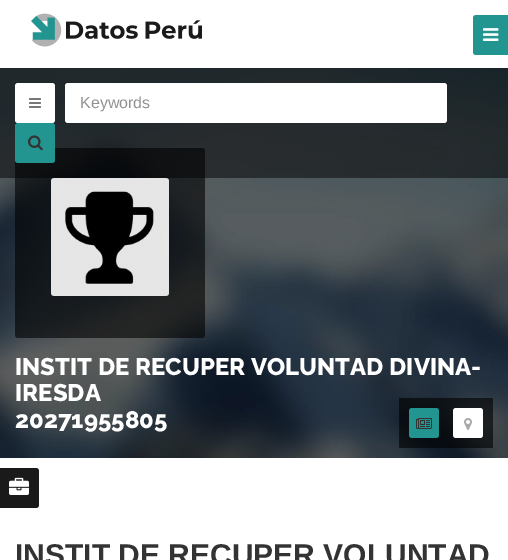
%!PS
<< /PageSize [508 560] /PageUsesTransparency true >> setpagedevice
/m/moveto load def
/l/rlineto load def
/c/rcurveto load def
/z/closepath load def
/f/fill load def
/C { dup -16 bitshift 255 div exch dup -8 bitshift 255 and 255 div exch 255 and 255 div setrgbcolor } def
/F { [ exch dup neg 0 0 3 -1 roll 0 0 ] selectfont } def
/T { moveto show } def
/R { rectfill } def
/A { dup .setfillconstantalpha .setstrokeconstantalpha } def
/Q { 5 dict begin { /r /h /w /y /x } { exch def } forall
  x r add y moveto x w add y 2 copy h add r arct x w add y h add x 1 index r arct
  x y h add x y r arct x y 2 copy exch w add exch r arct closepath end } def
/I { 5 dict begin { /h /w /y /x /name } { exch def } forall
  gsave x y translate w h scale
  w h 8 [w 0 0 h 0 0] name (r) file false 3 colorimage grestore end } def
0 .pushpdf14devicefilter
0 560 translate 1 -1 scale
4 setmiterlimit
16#FFFFFF C
0 0 508 560 R
(1.rgb) 31 13 171 34 I
16#229590 C
476 15 m 32 0 l 0 40 l -32 0 l -1.5 0 -3 -1.5 -3 -3 c 0 -34 l 0 -1.5 1.5 -3 3 -3 c z f
(2.rgb) 483 28 16 13 I
(5.rgb) 0 68 508 390 I
0.6 A
16#000000 C
15 148 190 190 3 Q f
0.5 A
0 68 508 110 R
1 A
16#FFFFFF C
15 83 40 40 3 Q f
(3.rgb) 29 98 12 10 I
65 83 382 40 3 Q f
/LiberationSans-Regular 16 F
16#919191 C
(Keywords) 80 108 T
16#229590 C
15 123 40 40 3 Q f
(4.rgb) 28 135 15 16 I
(6.rgb) 51 178 118 118 I
/Raleway-Thin 24 F
16#FFFFFF C
(INSTIT DE RECUPER VOLUNTAD DIVINA-) 15 375 T
(IRESDA) 15 401 T
(20271955805) 15 428 T
0.6 A
16#000000 C
399 398 94 50 R
1 A
16#229590 C
409 408 30 30 3 Q f
(7.rgb) 416 418 16 11 I
16#FFFFFF C
453 408 30 30 3 Q f
(8.rgb) 464 418 8 12 I
16#1A1A1A C
0 468 m 36 0 l 1.5 0 3 1.5 3 3 c 0 34 l 0 1.5 -1.5 3 -3 3 c -36 0 l z f
(9.rgb) 9 477 20 18 I
/LiberationSans-Bold 30 F
16#333333 C
(INSTIT DE RECUPER VOLUNTAD) 15 565 T
.poppdf14devicefilter showpage
